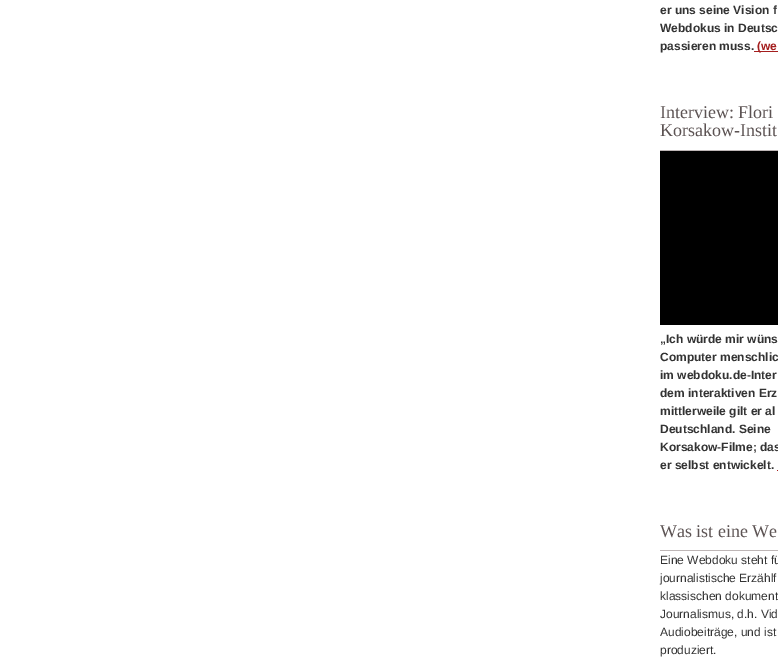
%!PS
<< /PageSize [778 669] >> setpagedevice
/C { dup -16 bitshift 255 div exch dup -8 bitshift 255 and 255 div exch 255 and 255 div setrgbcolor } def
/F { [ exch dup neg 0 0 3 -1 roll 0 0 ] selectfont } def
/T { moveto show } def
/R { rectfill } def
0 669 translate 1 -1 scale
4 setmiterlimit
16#FFFFFF C
0 0 778 669 R
/LiberationSans-Bold 12 F
16#333333 C
(er uns seine Vision f) 660 14 T
(Webdokus in Deutsc) 660 32 T
(passieren muss.) 660 50 T
16#A41E1E C
754 51 24 1 R
(\(we) 757 50 T
16#BEB6B6 C
660 150 118 1 R
/LiberationSerif-Regular 18 F
16#5C5353 C
(Interview: Flori) 660 118 T
(Korsakow-Instit) 660 136 T
16#000000 C
660 151 118 174 R
/LiberationSans-Bold 12 F
16#333333 C
(„Ich würde mir wüns) 660 343 T
(Computer menschlic) 660 361 T
(im webdoku.de-Inter) 660 379 T
(dem interaktiven Erz) 660 397 T
(mittlerweile gilt er al) 660 415 T
(Deutschland. Seine) 660 433 T
(Korsakow-Filme; das) 660 451 T
(er selbst entwickelt.) 660 469 T
16#A41E1E C
777 470 1 1 R
16#BEB6B6 C
660 550 118 1 R
/LiberationSerif-Regular 18 F
16#5C5353 C
(Was ist eine We) 660 537 T
/LiberationSans-Regular 12 F
16#333333 C
(Eine Webdoku steht fü) 660 564 T
(journalistische Erzählf) 660 582 T
(klassischen dokument) 660 600 T
(Journalismus, d.h. Vid) 660 618 T
(Audiobeiträge, und ist) 660 636 T
(produziert.) 660 654 T
showpage
